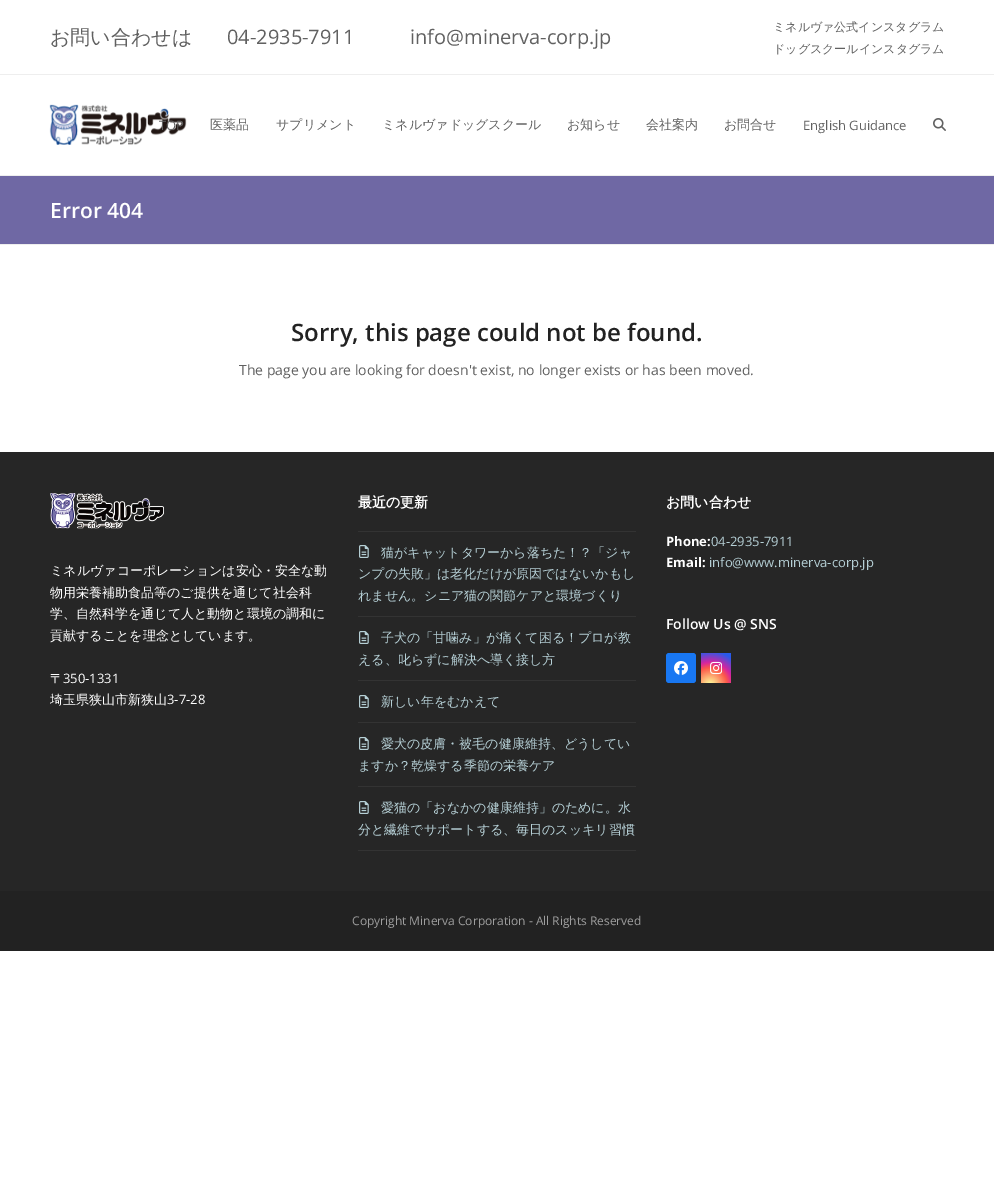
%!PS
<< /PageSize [994 1183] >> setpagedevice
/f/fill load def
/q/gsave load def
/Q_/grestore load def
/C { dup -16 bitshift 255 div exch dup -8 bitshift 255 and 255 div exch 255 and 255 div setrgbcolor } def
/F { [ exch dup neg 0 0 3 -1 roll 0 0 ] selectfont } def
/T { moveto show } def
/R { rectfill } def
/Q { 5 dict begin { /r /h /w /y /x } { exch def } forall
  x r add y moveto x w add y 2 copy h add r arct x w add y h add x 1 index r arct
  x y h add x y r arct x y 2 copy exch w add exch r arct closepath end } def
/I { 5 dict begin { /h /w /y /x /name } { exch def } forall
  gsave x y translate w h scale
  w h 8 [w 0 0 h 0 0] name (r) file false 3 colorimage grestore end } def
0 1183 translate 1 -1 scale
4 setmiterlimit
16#FFFFFF C
0 0 994 1183 R
16#EEEEEE C
0 74 994 1 R
/WenQuanYiZenHei-Medium 20 F
16#616161 C
(お問い合わせは) 50 44 T
/OpenSans-Regular 20 F
(04-2935-7911) 227 44 T
(info@minerva-corp.jp) 410 44 T
/WenQuanYiZenHei-Medium 12 F
(ミネルヴァ公式インスタグラム) 773 31 T
(ドッグスクールインスタグラム) 773 53 T
(1.rgb) 49 104 138 41 I
/OpenSans-Regular 13 F
(TOP) 159 130 T
/WenQuanYiZenHei-Medium 13 F
(医薬品) 210 129 T
(サプリメント) 276 129 T
(ミネルヴァドッグスクール) 382 129 T
(お知らせ) 567 129 T
(会社案内) 646 129 T
(お問合せ) 724 129 T
/OpenSans-Regular 13 F
(English Guidance) 803 130 T
(2.rgb) 933 118 13 13 I
16#6F68A4 C
0 176 994 68 R
16#EEEEEE C
0 175 994 1 R
0 244 994 1 R
/OpenSans-SemiBold 21 F
16#FFFFFF C
(Error 404) 50 218 T
/OpenSans-SemiBold 24 F
16#222222 C
(Sorry, this page could not be found.) 291 341 T
/OpenSans-Regular 14 F
16#616161 C
(The page you are looking for doesn't exist, no longer exists or has been moved.) 239 375 T
16#262626 C
0 452 994 439 R
(3.rgb) 50 493 114 36 I
/WenQuanYiZenHei-Medium 13 F
16#FFFFFF C
(ミネルヴァコーポレーションは安心・安全な動) 50 575 T
(物用栄養補助食品等のご提供を通じて社会科) 50 597 T
(学、自然科学を通じて人と動物と環境の調和に) 50 618 T
(貢献することを理念としています。) 50 640 T
(〒) 50 683 T
/OpenSans-Regular 13 F
(350-1331) 63 683 T
/WenQuanYiZenHei-Medium 13 F
(埼玉県狭山市新狭山) 50 704 T
/OpenSans-Regular 13 F
(3-7-28) 167 704 T
/WenQuanYiZenHei-Bold 14 F
(最近の更新) 358 507 T
16#333333 C
358 531 278 1 R
358 616 278 1 R
(4.rgb) 359 545 10 13 I
/WenQuanYiZenHei-Medium 13 F
16#B6D0D6 C
(猫がキャットタワーから落ちた！？「ジャ) 381 557 T
(ンプの失敗」は老化だけが原因ではないかもし) 358 578 T
(れません。シニア猫の関節ケアと環境づくり) 358 600 T
16#333333 C
358 680 278 1 R
(4.rgb) 359 631 10 13 I
16#B6D0D6 C
(子犬の「甘噛み」が痛くて困る！プロが教) 381 642 T
(える、叱らずに解決へ導く接し方) 358 664 T
16#333333 C
358 722 278 1 R
(4.rgb) 359 695 10 13 I
16#B6D0D6 C
(新しい年をむかえて) 381 706 T
16#333333 C
358 786 278 1 R
(4.rgb) 359 737 10 13 I
16#B6D0D6 C
(愛犬の皮膚・被毛の健康維持、どうしてい) 381 748 T
(ますか？乾燥する季節の栄養ケア) 358 770 T
16#333333 C
358 850 278 1 R
(4.rgb) 359 801 10 13 I
16#B6D0D6 C
(愛猫の「おなかの健康維持」のために。水) 381 812 T
(分と繊維でサポートする、毎日のスッキリ習慣) 358 834 T
/WenQuanYiZenHei-Bold 14 F
16#FFFFFF C
(お問い合わせ) 666 507 T
/OpenSans-Bold 13 F
(Phone:) 666 546 T
/OpenSans-Regular 13 F
16#B6D0D6 C
(04-2935-7911) 711 546 T
/OpenSans-Bold 13 F
16#FFFFFF C
(Email:) 666 567 T
/OpenSans-Regular 13 F
16#B6D0D6 C
(info@www.minerva-corp.jp) 709 567 T
/OpenSans-SemiBold 14 F
16#FFFFFF C
(Follow Us @ SNS) 666 629 T
16#1877F2 C
666 653 30 30 3 Q f
(5.rgb) 674 661 14 14 I
q 701 653 30 30 3 Q clip newpath 710 685 translate 38 38 scale
<< /ShadingType 3 /ColorSpace /DeviceRGB /Coords [0 0 0 0 0 1] /Extend [true true] /Function << /FunctionType 3 /Domain [0 1] /Functions [<< /FunctionType 2 /Domain [0 1] /C0 [.992 .957 .592] /C1 [.992 .957 .592] /N 1 >> << /FunctionType 2 /Domain [0 1] /C0 [.992 .957 .592] /C1 [.992 .349 .286] /N 1 >> << /FunctionType 2 /Domain [0 1] /C0 [.992 .349 .286] /C1 [.839 .141 .624] /N 1 >> << /FunctionType 2 /Domain [0 1] /C0 [.839 .141 .624] /C1 [.157 .353 .922] /N 1 >> << /FunctionType 2 /Domain [0 1] /C0 [.157 .353 .922] /C1 [.157 .353 .922] /N 1 >>] /Bounds [.05 .45 .6 .9] /Encode [0 1 0 1 0 1 0 1 0 1] >> >> shfill Q_
(6.rgb) 710 661 12 14 I
16#222222 C
0 891 994 60 R
/OpenSans-Regular 12 F
16#9E9E9E C
(Copyright Minerva Corporation - All Rights Reserved) 352 925 T
showpage
